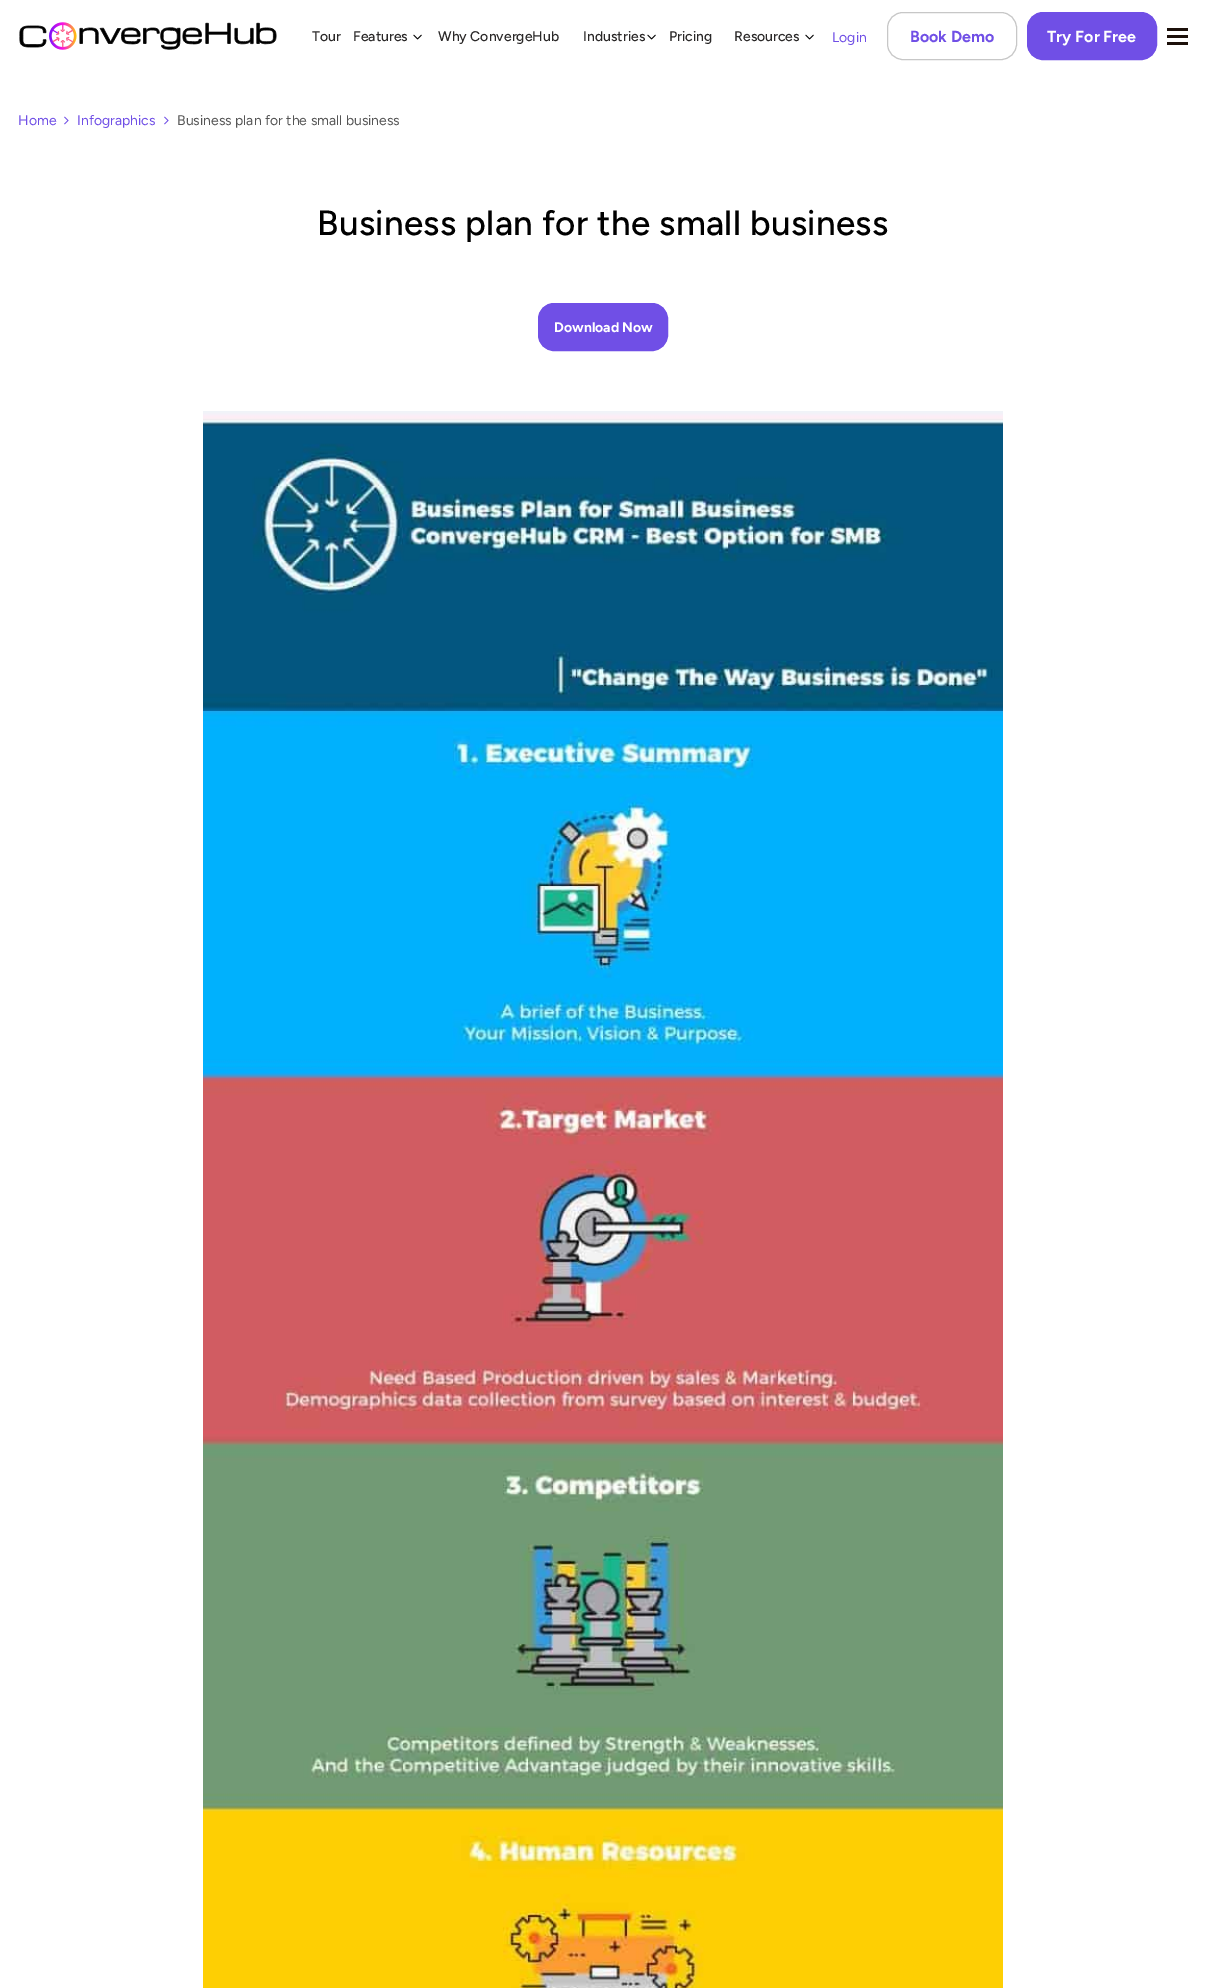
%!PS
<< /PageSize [1206 1988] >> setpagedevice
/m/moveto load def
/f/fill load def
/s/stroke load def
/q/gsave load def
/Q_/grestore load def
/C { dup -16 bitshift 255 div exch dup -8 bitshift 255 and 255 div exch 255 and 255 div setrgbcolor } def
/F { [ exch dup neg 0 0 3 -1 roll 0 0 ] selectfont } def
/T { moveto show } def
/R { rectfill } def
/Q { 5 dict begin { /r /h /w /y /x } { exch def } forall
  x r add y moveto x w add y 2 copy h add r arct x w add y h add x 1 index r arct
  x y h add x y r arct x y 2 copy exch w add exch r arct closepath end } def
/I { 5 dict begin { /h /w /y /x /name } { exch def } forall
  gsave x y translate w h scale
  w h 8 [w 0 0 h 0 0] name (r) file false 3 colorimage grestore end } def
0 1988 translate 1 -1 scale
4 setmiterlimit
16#FFFFFF C
0 0 1206 1988 R
(1.rgb) 19 22 258 28 I
/Figtree-Medium 14 F
16#2A2828 C
(Tour) 312 41 T
(Features) 353 41 T
(2.rgb) 413 34 9 6 I
(Why ConvergeHub) 438 41 T
(Industries) 583 41 T
(2.rgb) 647 34 9 6 I
(Pricing) 669 41 T
(Resources) 734 41 T
(2.rgb) 805 34 9 6 I
/Figtree-Regular 14 F
16#704FE6 C
(Login) 832 42 T
16#C7C7C7 C
887.5 12.5 129 47 15.5 Q s
/Figtree-Bold 16 F
16#704FE6 C
(Book Demo) 910 42 T
1027.5 12.5 129 47 15.5 Q q f Q_
s
16#FFFFFF C
(Try For Free) 1047 42 T
(3.rgb) 1167 28 21 17 I
/Figtree-Regular 14 F
16#704FE6 C
(Home) 18 125 T
(4.rgb) 64 116 5 9 I
(Infographics) 77 125 T
(4.rgb) 164 116 5 9 I
16#555555 C
(Business plan for the small business) 177 125 T
/Figtree-Medium 35 F
16#000000 C
317 235 m .3 0 (Business plan for the small business) ashow
16#704FE6 C
538.5 303.5 129 47 15.5 Q q f Q_
s
/Figtree-Bold 14 F
16#FFFFFF C
(Download Now) 554 332 T
(5.rgb) 203 411 800 1577 I
showpage
